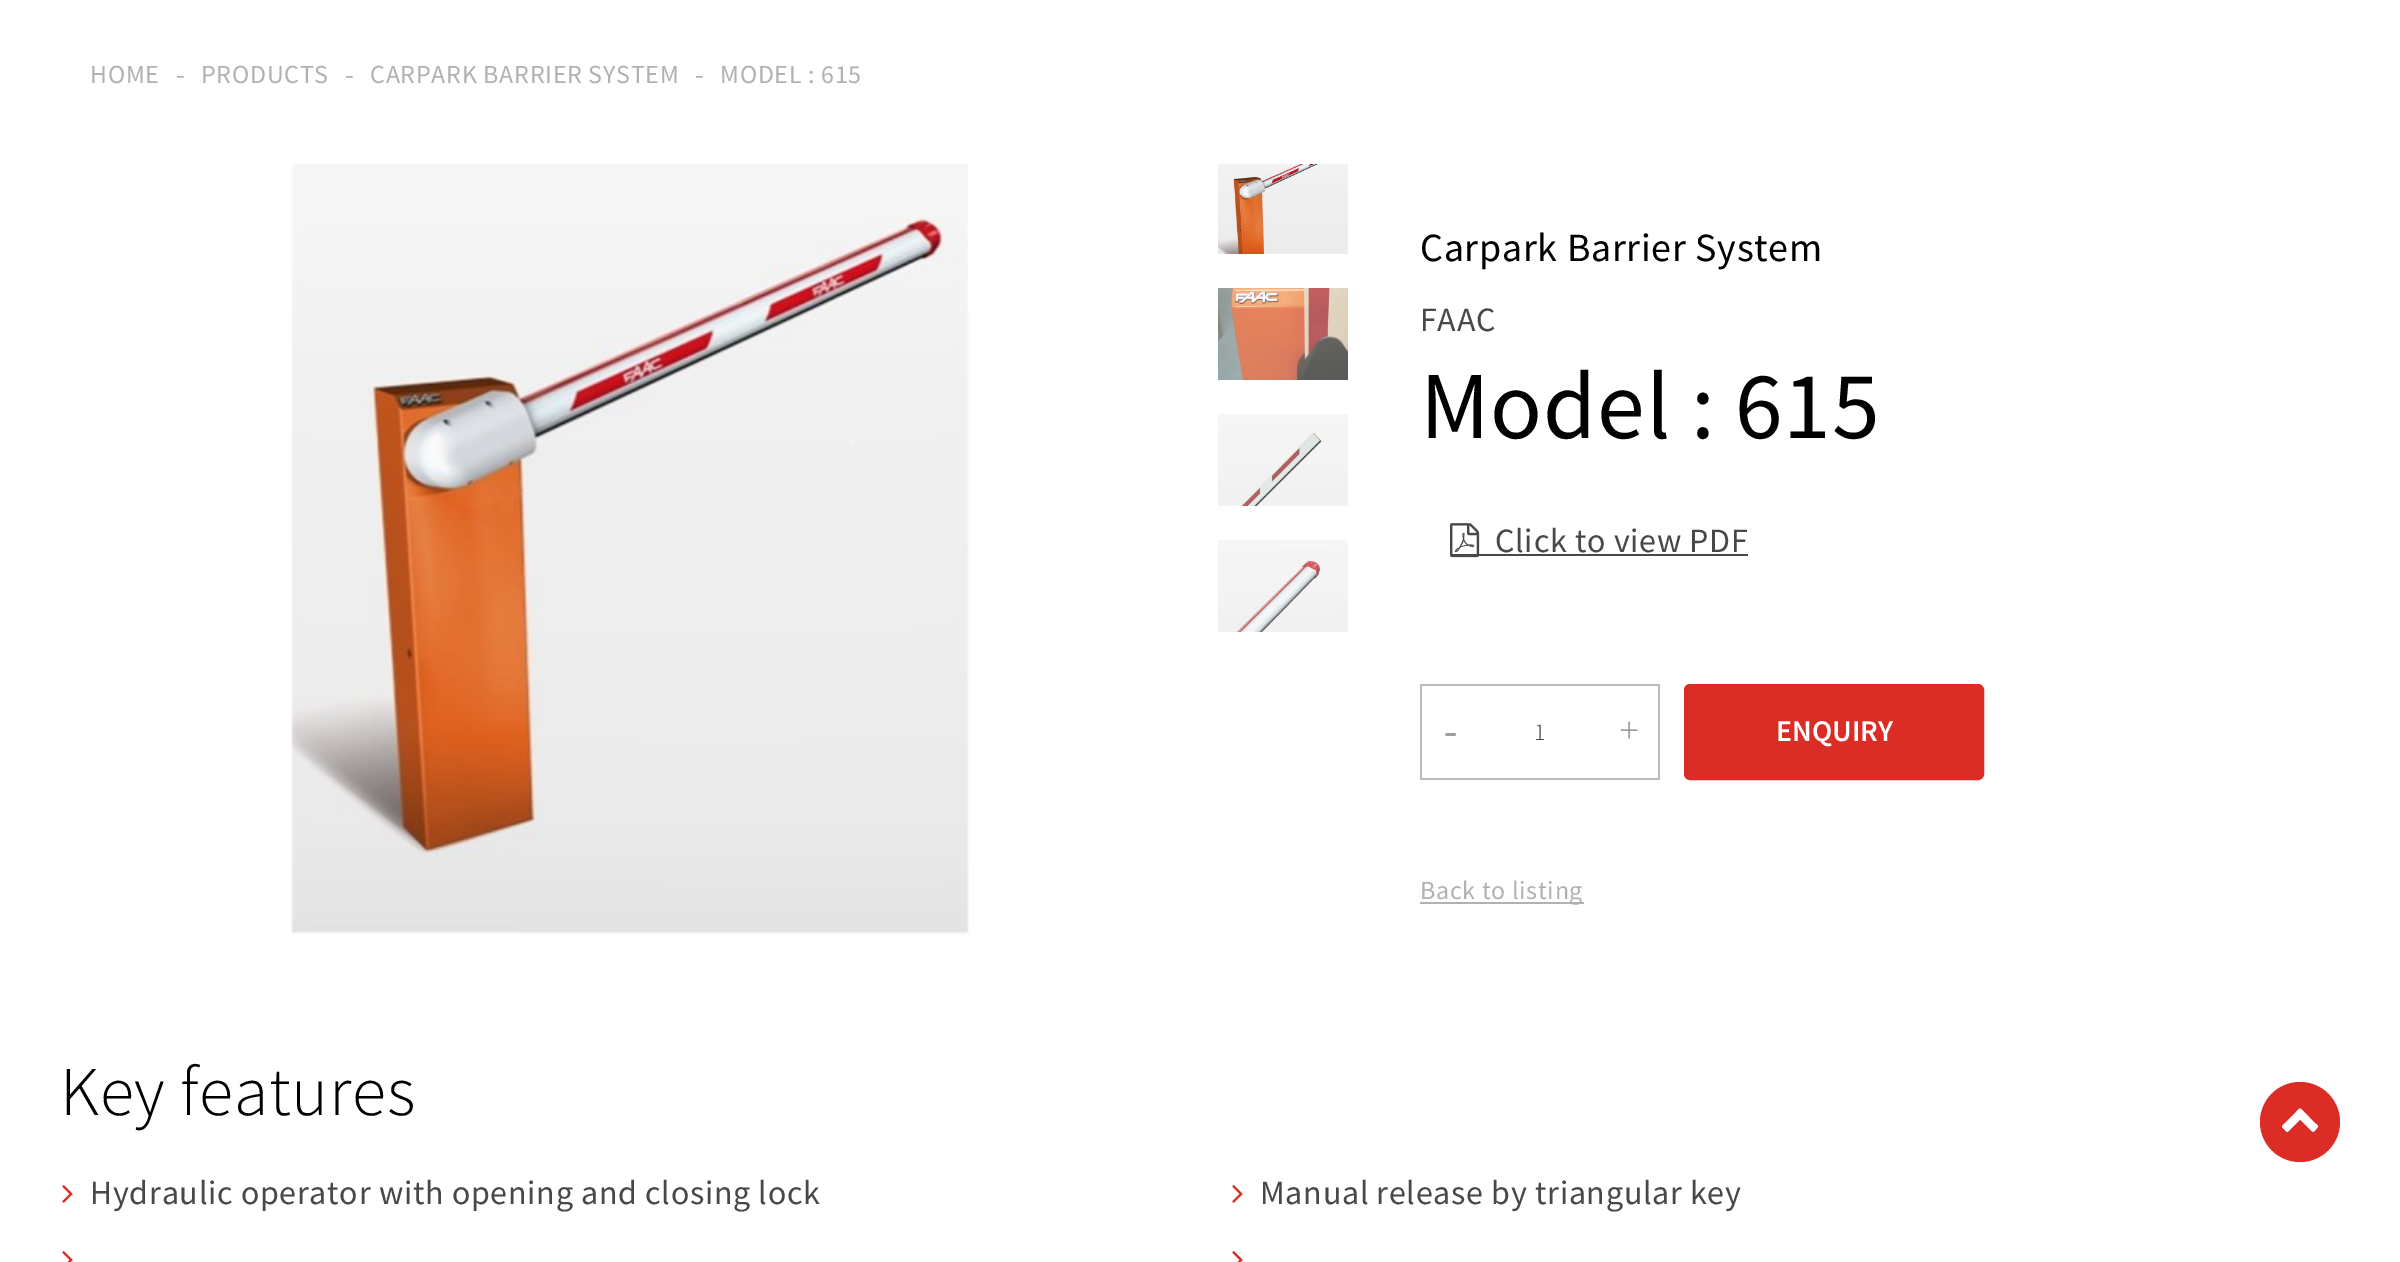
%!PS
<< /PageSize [2400 1262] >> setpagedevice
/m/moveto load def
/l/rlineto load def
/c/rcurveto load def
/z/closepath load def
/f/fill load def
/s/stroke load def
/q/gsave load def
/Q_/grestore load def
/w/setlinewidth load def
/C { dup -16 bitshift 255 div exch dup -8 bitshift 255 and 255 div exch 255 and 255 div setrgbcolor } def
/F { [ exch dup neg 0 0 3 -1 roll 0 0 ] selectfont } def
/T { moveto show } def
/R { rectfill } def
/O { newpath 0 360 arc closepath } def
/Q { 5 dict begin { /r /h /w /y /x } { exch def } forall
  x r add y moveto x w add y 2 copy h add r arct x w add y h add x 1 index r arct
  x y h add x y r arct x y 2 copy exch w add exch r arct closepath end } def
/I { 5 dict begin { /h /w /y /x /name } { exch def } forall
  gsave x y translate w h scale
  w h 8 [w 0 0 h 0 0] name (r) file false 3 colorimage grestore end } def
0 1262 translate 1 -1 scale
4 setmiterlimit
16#FFFFFF C
0 0 2400 1262 R
/SourceSansPro-Regular 26 F
16#B1B1B1 C
90 83 m .7 0 (HOME) ashow
/LiberationSerif-Regular 26 F
176 83 m .7 0 (-) ashow
/SourceSansPro-Regular 26 F
201 83 m .7 0 (PRODUCTS) ashow
/LiberationSerif-Regular 26 F
345 83 m .7 0 (-) ashow
/SourceSansPro-Regular 26 F
370 83 m .7 0 (CARPARK BARRIER SYSTEM) ashow
/LiberationSerif-Regular 26 F
695 83 m .7 0 (-) ashow
/SourceSansPro-Regular 26 F
720 83 m .7 0 (MODEL : 615) ashow
(1.rgb) 291 164 678 770 I
(2.rgb) 1218 164 130 90 I
(3.rgb) 1218 288 130 92 I
(4.rgb) 1218 414 130 92 I
(5.rgb) 1218 540 130 92 I
/SourceSansPro-Regular 40 F
16#000000 C
1420 261 m .7 0 (Carpark Barrier System) ashow
/SourceSansPro-Regular 34 F
16#484848 C
1420 331 m .7 0 (FAAC) ashow
/SourceSansPro-Regular 96 F
16#000000 C
1420 438 m .7 0 (Model : 615) ashow
16#484848 C
1450 554 298 2 R
(6.rgb) 1450 523 30 35 I
/SourceSansPro-Regular 34 F
1495 552 m .7 0 (Click to view PDF) ashow
16#BBBBBB C
1420 684 240 2 R
1420 778 180 2 R
1420 684 2 96 R
/LiberationSerif-Regular 40 F
16#9E9E9E C
(-) 1444 744 T
/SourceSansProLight-Light 24 F
16#484848 C
(1) 1534 740 T
16#BBBBBB C
1658 684 2 96 R
1600 778 60 2 R
/LiberationSerif-Regular 36 F
16#9E9E9E C
(+) 1619 742 T
16#DB2C25 C
1685 685 298 94 5 Q q f Q_
2 w
s
/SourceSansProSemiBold-SemiBold 30 F
16#FFFFFF C
(ENQUIRY) 1776 741 T
16#B1B1B1 C
1420 902 164 2 R
/SourceSansPro-Regular 26 F
1420 899 m .7 0 (Back to listing) ashow
/SourceSansProLight-Light 70 F
16#000000 C
60 1115 m .7 0 (Key features) ashow
(7.rgb) 62 1185 11 18 I
/SourceSansPro-Regular 34 F
16#484848 C
90 1204 m .7 0 (Hydraulic operator with opening and closing lock) ashow
(7.rgb) 1232 1185 11 18 I
1260 1204 m .7 0 (Manual release by triangular key) ashow
(8.rgb) 62 1251 11 11 I
(8.rgb) 1232 1251 11 11 I
16#DB2C25 C
2300 1122 40 O f
16#FFFFFF C
2317.5 1127.5 m -4 4.5 -3.5 6 -7.5 2 c -10 -10 l -1.5 1.5 -11.5 12 -12.5 12.5 c -1 0 -2 -1 -2.5 -2 c -4 -3.5 -4 -3 0 -7 c 11 -11 l .5 -.5 2.5 -3.5 4.5 -3.5 c 1 .5 7.5 7.5 9 9 c 5.5 5.5 l .5 .5 4.5 3 2.5 4.5 c z f
showpage
